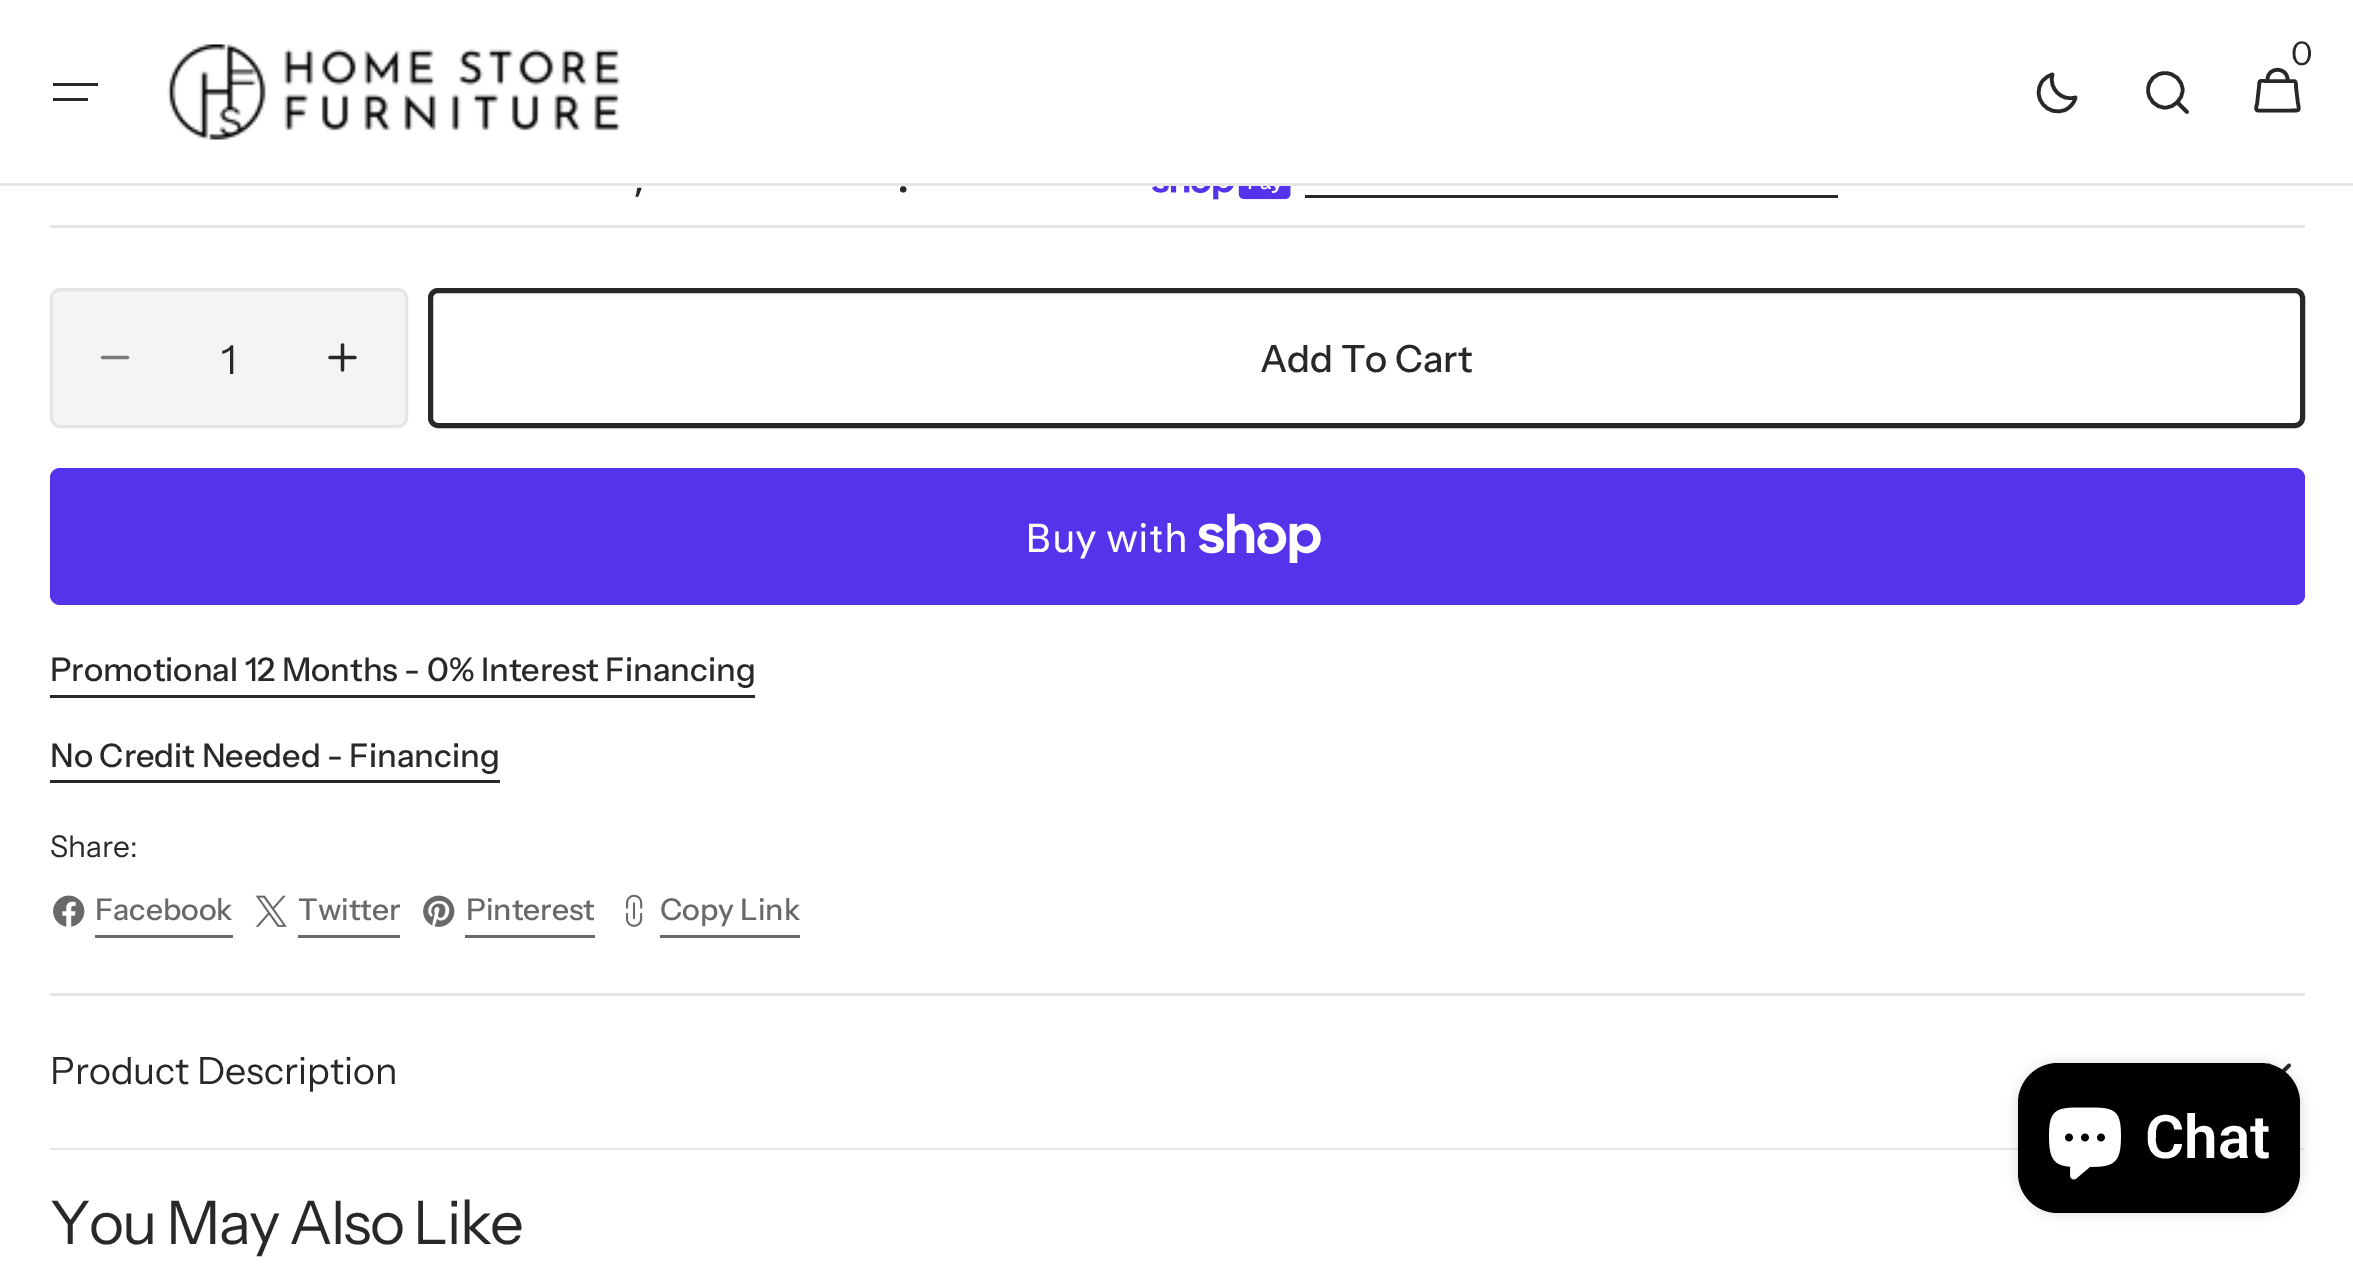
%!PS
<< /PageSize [2353 1265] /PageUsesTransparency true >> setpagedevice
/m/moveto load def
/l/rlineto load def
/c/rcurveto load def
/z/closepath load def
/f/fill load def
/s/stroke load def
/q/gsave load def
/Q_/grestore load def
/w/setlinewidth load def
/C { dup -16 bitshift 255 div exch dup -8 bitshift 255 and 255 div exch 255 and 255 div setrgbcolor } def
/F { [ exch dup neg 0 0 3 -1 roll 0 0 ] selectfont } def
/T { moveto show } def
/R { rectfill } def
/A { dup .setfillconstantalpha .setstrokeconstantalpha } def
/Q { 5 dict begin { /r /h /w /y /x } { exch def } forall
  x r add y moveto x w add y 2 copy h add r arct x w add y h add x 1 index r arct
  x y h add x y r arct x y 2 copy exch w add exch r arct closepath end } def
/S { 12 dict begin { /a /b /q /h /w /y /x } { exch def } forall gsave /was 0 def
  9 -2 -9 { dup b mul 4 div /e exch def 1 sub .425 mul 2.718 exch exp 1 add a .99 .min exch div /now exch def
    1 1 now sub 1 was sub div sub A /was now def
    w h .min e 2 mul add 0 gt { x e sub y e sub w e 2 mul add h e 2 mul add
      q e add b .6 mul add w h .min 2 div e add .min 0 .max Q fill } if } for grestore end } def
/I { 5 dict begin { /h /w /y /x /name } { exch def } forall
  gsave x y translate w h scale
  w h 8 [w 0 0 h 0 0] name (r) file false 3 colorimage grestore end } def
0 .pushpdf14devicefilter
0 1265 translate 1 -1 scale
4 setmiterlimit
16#FFFFFF C
0 0 2353 1265 R
16#282828 C
53 83 45 3 R
53 98 35 3 R
(1.rgb) 167 44 454 96 I
/InstrumentSans-Regular 32.5 F
(0) 2291 65 T
3.6 w
1 setlinecap
1 setlinejoin
2294 81 m -27.5 0 l -7.5 0 -7 -1.5 -7.5 6 c -2 17.5 l -.5 .5 -2 6 1 6 c 32.5 0 l 10.5 0 8.5 1 7 -10.5 c -1.5 -13 l 0 -1 .5 -6 -2 -6 c z 2267.5 79.5 m 0 -13 20 -13 20 0 c s
2075.5 97.5 m -14 4 -27 -9 -23 -23 c -4 1 -7.5 3.5 -10 6.5 c -12 16 5.5 37 23.5 28.5 c 4.5 -2.5 8.5 -7 9.5 -12 c z s
2165 107.5 m 9.5 0 17.5 -8 17.5 -17.5 c 0 -9.5 -8 -17 -17.5 -17 c -9.5 0 -17 7.5 -17 17 c 0 9.5 7.5 17.5 17 17.5 c z 2177 102 m 10 10 l s
16#E5E5E5 C
0 183 2353 3 R
/NotoSans-Medium 37.5 F
16#282828 C
(,) 634 192 T
/NotoSans-Bold 37.5 F
(.) 898 192 T
(2.rgb) 1152 186 139 14 I
1305 195 533 3 R
16#E5E5E5 C
50 225 2255 3 R
16#F4F4F4 C
51.5 289.5 355 137 8.5 Q q f Q_
16#E5E5E5 C
3 w
0 setlinecap
0 setlinejoin
s
16#7A7A7A C
3.2 w
1 setlinecap
127.5 357.5 m -25 0 l s
/InstrumentSans-Regular 40 F
16#282828 C
(1) 221 374 T
355 357.5 m -25 0 l 342.5 370 m 0 -25 l s
5 w
0 setlinecap
430.5 290.5 1872 135 7.5 Q s
/InstrumentSans-Medium 37.5 F
(Add To Cart) 1260 372 T
16#5433EB C
50 468 2255 137 10 Q f
/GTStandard-Regular 40 F
16#FFFFFF C
(Buy with) 1025 552 T
(3.rgb) 1198 513 123 50 I
/InstrumentSans-Medium 32.5 F
16#282828 C
(Promotional 12 Months - 0% Interest Financing) 50 681 T
50 695 705 3 R
(No Credit Needed - Financing) 50 767 T
50 780 450 3 R
/InstrumentSans-Regular 30 F
(Share:) 50 857 T
(4.rgb) 53 895 32 32 I
/InstrumentSans-Medium 30 F
16#696969 C
(Facebook) 95 920 T
95 935 138 3 R
(5.rgb) 255 895 32 32 I
(Twitter) 298 920 T
298 935 102 3 R
(6.rgb) 423 895 32 32 I
(Pinterest) 466 920 T
465 935 130 3 R
(7.rgb) 625 894 18 33 I
(Copy Link) 660 920 T
660 935 140 3 R
16#E5E5E5 C
50 993 2255 3 R
50 1148 2255 2 R
/InstrumentSans-Regular 37.5 F
16#282828 C
(Product Description) 50 1084 T
3.8 w
1 setlinecap
1 setlinejoin
2289 1065.5 m -10 10 l -10 -10 l s
/InstrumentSans-Regular 60 F
50 1244 m -1.75 0 (You May Also Like) ashow
16#000000 C
2018 1063 282 150 40 6 .15 S
2018 1063 282 150 40 Q f
(8.rgb) 2049 1107 72 73 I
/Roboto-SemiBold 60 F
16#FFFFFF C
(Chat) 2145 1158 T
.poppdf14devicefilter showpage
